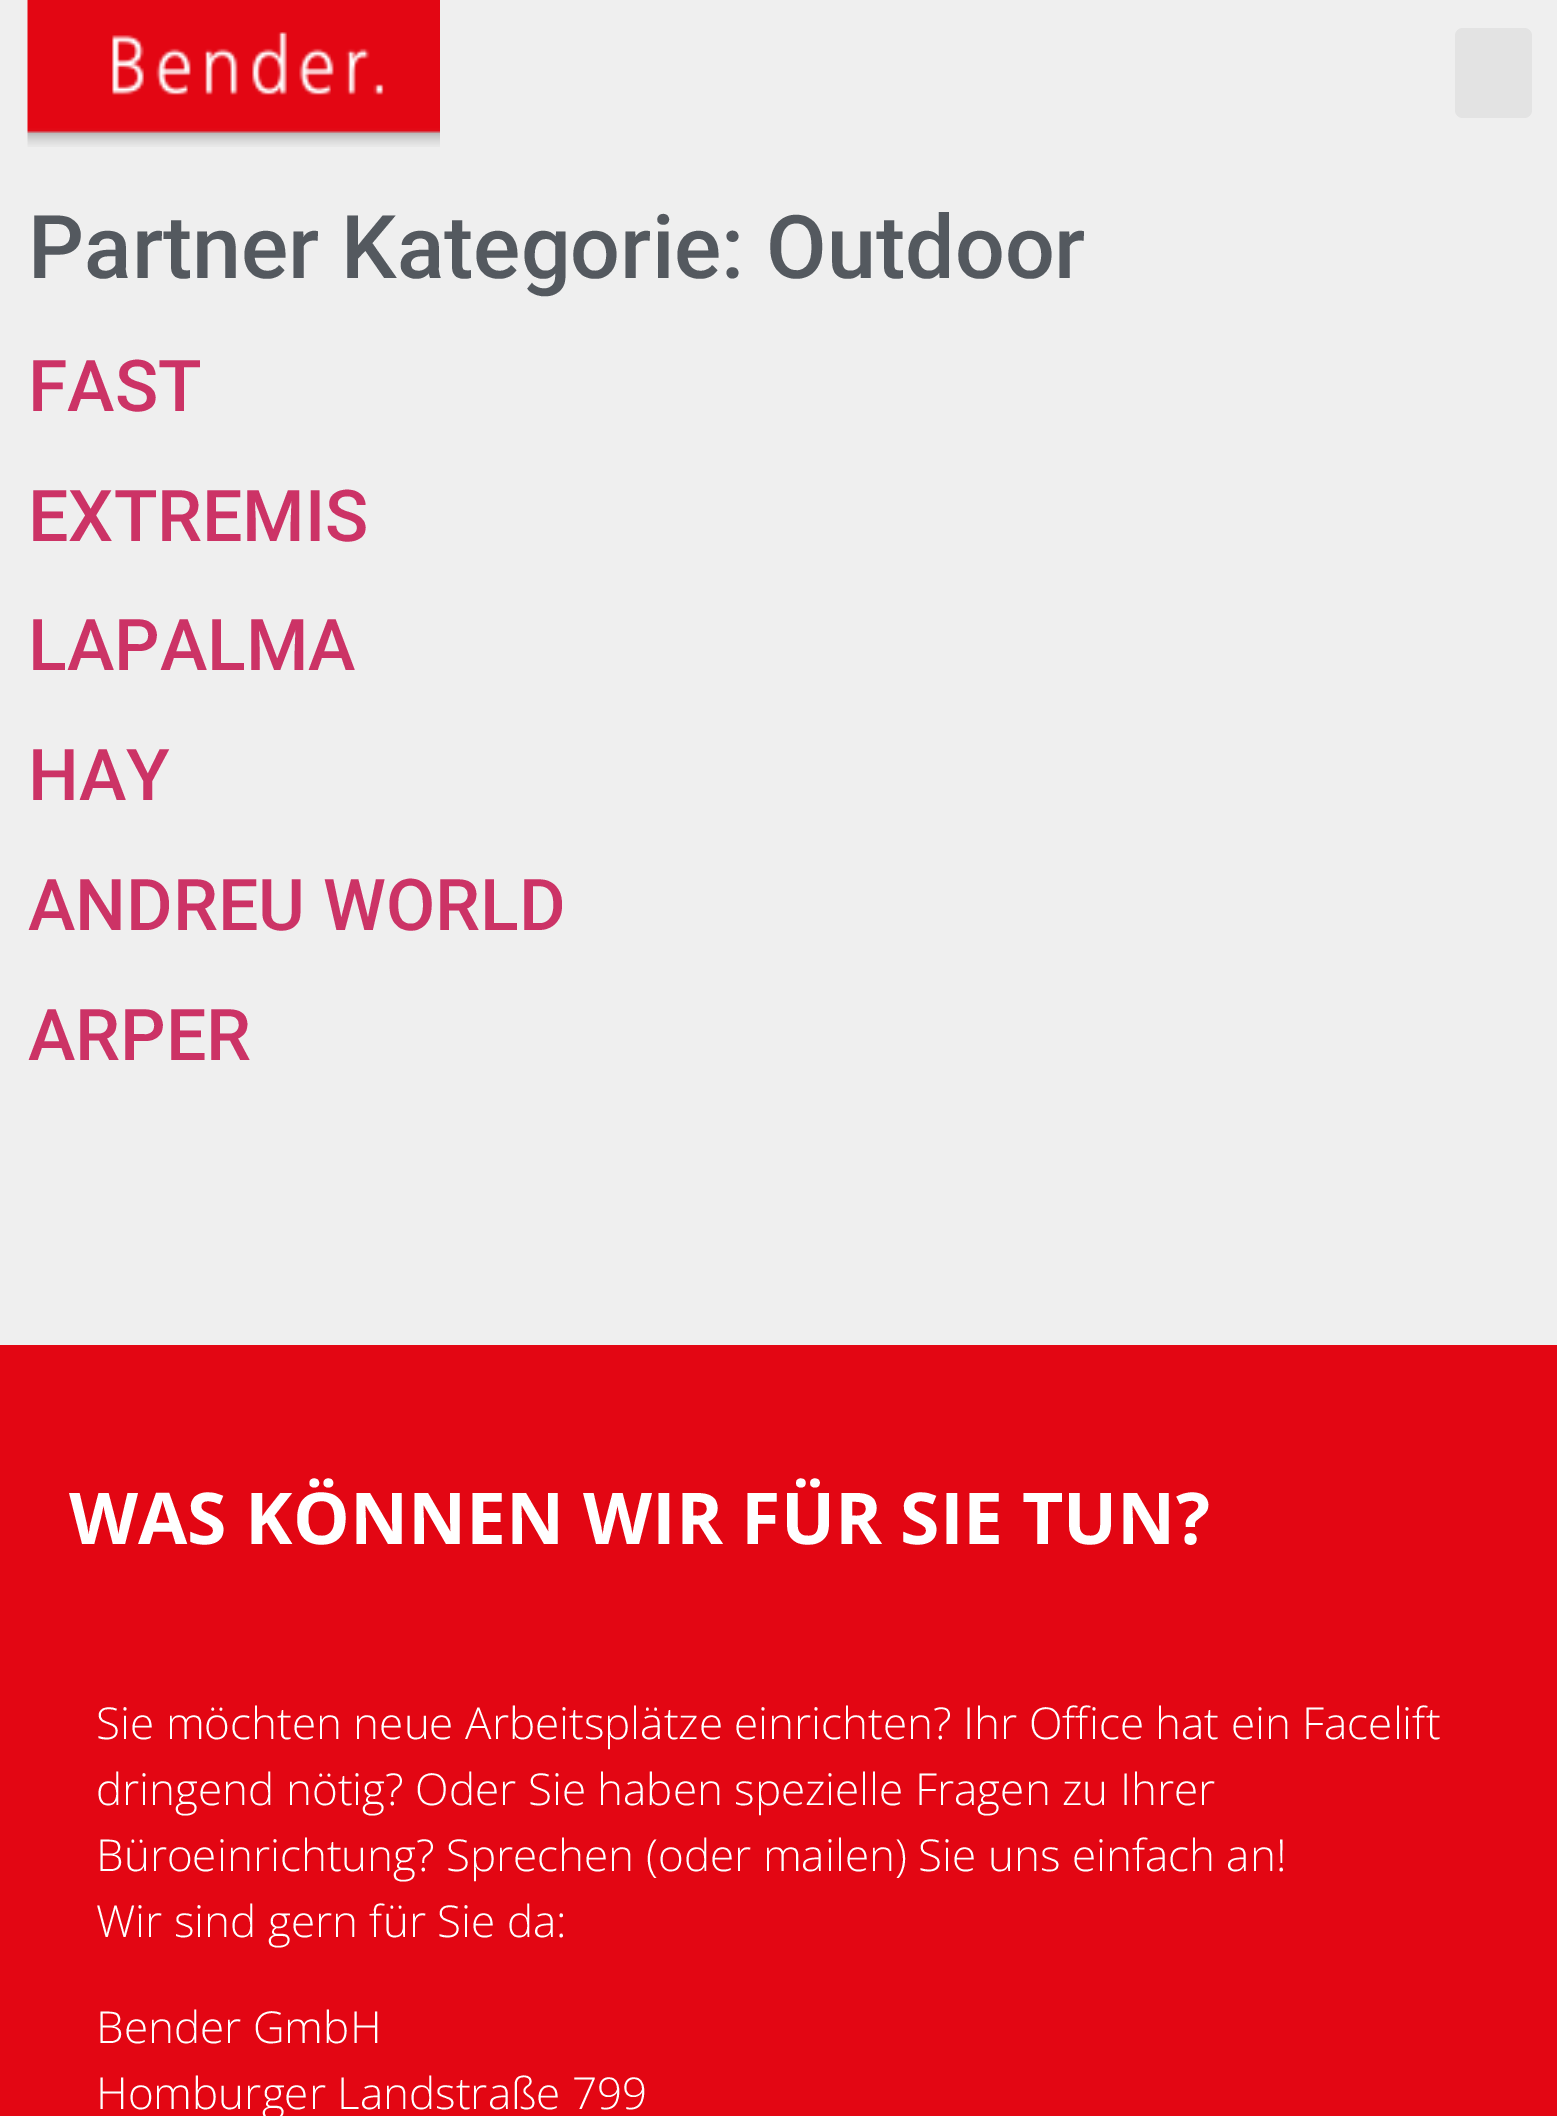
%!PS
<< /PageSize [1557 2116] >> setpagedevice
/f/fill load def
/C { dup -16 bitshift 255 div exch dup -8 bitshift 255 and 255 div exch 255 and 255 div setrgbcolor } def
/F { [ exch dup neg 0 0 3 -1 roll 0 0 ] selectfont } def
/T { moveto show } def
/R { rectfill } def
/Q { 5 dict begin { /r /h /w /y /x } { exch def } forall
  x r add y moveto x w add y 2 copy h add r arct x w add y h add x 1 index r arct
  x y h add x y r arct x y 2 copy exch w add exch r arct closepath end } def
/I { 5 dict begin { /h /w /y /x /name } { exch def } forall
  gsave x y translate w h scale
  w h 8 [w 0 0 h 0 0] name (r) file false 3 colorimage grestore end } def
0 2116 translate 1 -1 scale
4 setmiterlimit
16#EFEFEF C
0 0 1557 2116 R
(1.rgb) 27 0 413 147 I
16#E3E3E3 C
1455 28 77 90 8 Q f
/Roboto-Medium 88 F
16#54595F C
(Partner Kategorie: Outdoor) 28 278 T
/Roboto-Medium 71.5 F
16#CC3366 C
(FAST) 28 411 T
(EXTREMIS) 28 541 T
(LAPALMA) 28 670 T
(HAY) 28 800 T
(ANDREU WORLD) 28 930 T
(ARPER) 28 1060 T
16#E30613 C
0 1345 1557 771 R
/OpenSans-Bold 71.5 F
16#FFFFFF C
(WAS KÖNNEN WIR FÜR SIE TUN?) 69 1544 T
/OpenSans-Light 44 F
(Sie möchten neue Arbeitsplätze einrichten? Ihr Office hat ein Facelift) 96 1739 T
(dringend nötig? Oder Sie haben spezielle Fragen zu Ihrer) 96 1805 T
(Büroeinrichtung? Sprechen \(oder mailen\) Sie uns einfach an!) 96 1871 T
(Wir sind gern für Sie da:) 96 1937 T
(Bender GmbH) 96 2043 T
(Homburger Landstraße 799) 96 2109 T
showpage
